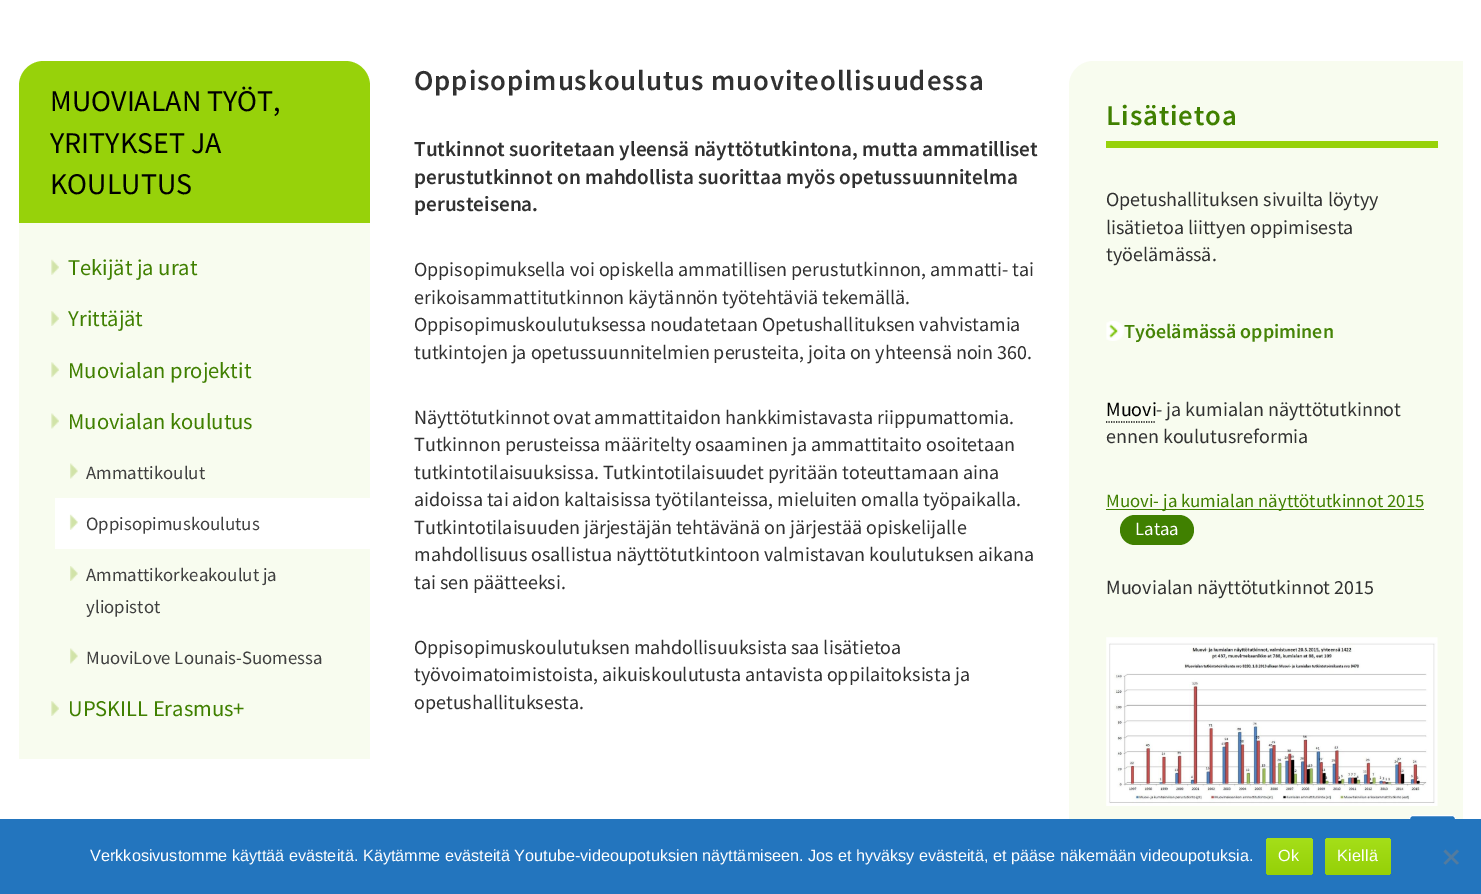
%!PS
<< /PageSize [1481 894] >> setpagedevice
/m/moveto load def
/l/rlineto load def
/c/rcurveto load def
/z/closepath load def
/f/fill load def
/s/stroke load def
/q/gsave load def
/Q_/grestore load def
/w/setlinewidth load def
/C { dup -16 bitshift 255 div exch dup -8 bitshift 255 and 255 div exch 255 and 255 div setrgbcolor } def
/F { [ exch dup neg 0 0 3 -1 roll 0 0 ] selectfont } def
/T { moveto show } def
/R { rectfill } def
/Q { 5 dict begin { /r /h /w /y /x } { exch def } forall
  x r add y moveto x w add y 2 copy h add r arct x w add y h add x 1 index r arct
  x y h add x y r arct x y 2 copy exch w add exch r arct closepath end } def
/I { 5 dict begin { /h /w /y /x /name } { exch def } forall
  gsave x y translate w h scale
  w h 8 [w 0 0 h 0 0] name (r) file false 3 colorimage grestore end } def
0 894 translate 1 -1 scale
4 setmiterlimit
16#FFFFFF C
0 0 1481 894 R
16#F8FCEF C
44 61 m 301 0 l 14 0 25 11 25 25 c 0 673 l -351 0 l 0 -673 l 0 -14 11 -25 25 -25 c z f
16#97D20A C
44 61 m 301 0 l 14 0 25 11 25 25 c 0 648 l -351 0 l 0 -648 l 0 -14 11 -25 25 -25 c z f
/SourceSansPro-Regular 30 F
16#000000 C
(MUOVIALAN TYÖT,) 50 111 T
(YRITYKSET JA) 50 153 T
(KOULUTUS) 50 194 T
16#F8FCEF C
19 223 351 511 R
(1.rgb) 51 259 8 16 I
/SourceSansPro-Regular 22.5 F
16#408000 C
(Tekijät ja urat) 68 275 T
(2.rgb) 51 311 8 15 I
(Yrittäjät) 68 326 T
(3.rgb) 51 362 9 16 I
(Muovialan projektit) 68 378 T
(4.rgb) 51 413 8 16 I
(Muovialan koulutus) 68 429 T
(5.rgb) 70 463 8 16 I
/SourceSansPro-Regular 18.75 F
16#404040 C
(Ammattikoulut) 86 479 T
16#FFFFFF C
55 498 315 51 R
(6.rgb) 69 514 9 16 I
16#404040 C
(Oppisopimuskoulutus) 86 530 T
(7.rgb) 70 566 8 15 I
(Ammattikorkeakoulut ja) 86 581 T
(yliopistot) 86 613 T
(5.rgb) 70 648 8 16 I
(MuoviLove Lounais-Suomessa) 86 664 T
(2.rgb) 51 701 8 15 I
/SourceSansPro-Regular 22.5 F
16#408000 C
(UPSKILL Erasmus+) 68 716 T
/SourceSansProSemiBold-SemiBold 28.75 F
16#313131 C
414 90 m .9 0 (Oppisopimuskoulutus muoviteollisuudessa) ashow
/SourceSansProSemiBold-SemiBold 21.25 F
(Tutkinnot suoritetaan yleensä näyttötutkintona, mutta ammatilliset) 414 156 T
(perustutkinnot on mahdollista suorittaa myös opetussuunnitelma) 414 184 T
(perusteisena.) 414 211 T
/SourceSansPro-Regular 20 F
(Oppisopimuksella voi opiskella ammatillisen perustutkinnon, ammatti- tai) 414 276 T
(erikoisammattitutkinnon käytännön työtehtäviä tekemällä.) 414 304 T
(Oppisopimuskoulutuksessa noudatetaan Opetushallituksen vahvistamia) 414 331 T
(tutkintojen ja opetussuunnitelmien perusteita, joita on yhteensä noin 360.) 414 359 T
(Näyttötutkinnot ovat ammattitaidon hankkimistavasta riippumattomia.) 414 424 T
(Tutkinnon perusteissa määritelty osaaminen ja ammattitaito osoitetaan) 414 451 T
(tutkintotilaisuuksissa. Tutkintotilaisuudet pyritään toteuttamaan aina) 414 479 T
(aidoissa tai aidon kaltaisissa työtilanteissa, mieluiten omalla työpaikalla.) 414 506 T
(Tutkintotilaisuuden järjestäjän tehtävänä on järjestää opiskelijalle) 414 534 T
(mahdollisuus osallistua näyttötutkintoon valmistavan koulutuksen aikana) 414 561 T
(tai sen päätteeksi.) 414 589 T
(Oppisopimuskoulutuksen mahdollisuuksista saa lisätietoa) 414 654 T
(työvoimatoimistoista, aikuiskoulutusta antavista oppilaitoksista ja) 414 681 T
(opetushallituksesta.) 414 709 T
16#F8FCEF C
1094 61 m 369 0 l 0 789 l -369 0 l -14 0 -25 -11 -25 -25 c 0 -739 l 0 -14 11 -25 25 -25 c z f
16#97D20A C
1106 141 332 7 R
/SourceSansProSemiBold-SemiBold 28.75 F
16#408000 C
1106 125 m .9 0 (Lisätietoa) ashow
/SourceSansPro-Regular 20 F
16#313131 C
(Opetushallituksen sivuilta löytyy) 1106 206 T
(lisätietoa liittyen oppimisesta) 1106 234 T
(työelämässä.) 1106 261 T
(8.rgb) 1106 321 18 20 I
/SourceSansProSemiBold-SemiBold 20 F
16#458406 C
(Työelämässä oppiminen) 1124 338 T
/SourceSansPro-Regular 20 F
16#000000 C
(Muovi) 1106 416 T
1.2 w
[1.25 1.25] 0 setdash
1106 422 m 50 0 l s
16#313131 C
(- ja kumialan näyttötutkinnot) 1156 416 T
(ennen koulutusreformia) 1106 443 T
16#408000 C
1106 509 318 1 R
/SourceSansPro-Regular 18.75 F
(Muovi- ja kumialan näyttötutkinnot 2015) 1106 507 T
1120 515 74 30 15 Q f
16#FFFFFF C
(Lataa) 1135 535 T
/SourceSansPro-Regular 20 F
16#313131 C
(Muovialan näyttötutkinnot 2015) 1106 594 T
(9.rgb) 1106 637 332 169 I
16#2375BE C
1409.5 815.5 46 42 3.5 Q q f Q_
16#FFFFFF C
1 w
[] 0 setdash
s
16#2375BE C
0 819 1481 75 R
/LiberationSans-Regular 16.25 F
16#FFFFFF C
(Verkkosivustomme käyttää evästeitä. Käytämme evästeitä Youtube-videoupotuksien näyttämiseen. Jos et hyväksy evästeitä, et pääse näkemään videoupotuksia.) 90 861 T
q 1266 838 47 37 4 Q clip newpath
<< /ShadingType 2 /ColorSpace /DeviceRGB /Coords [1289 838 1289 875] /Extend [true true] /Function << /FunctionType 2 /Domain [0 1] /C0 [.647 .875 .098] /C1 [.584 .816 .027] /N 1 >> >> shfill Q_
1278 861 m .25 0 (Ok) ashow
q 1325 838 66 37 4 Q clip newpath
<< /ShadingType 2 /ColorSpace /DeviceRGB /Coords [1358 838 1358 875] /Extend [true true] /Function << /FunctionType 2 /Domain [0 1] /C0 [.647 .875 .098] /C1 [.584 .816 .027] /N 1 >> >> shfill Q_
1337 861 m .25 0 (Kiellä) ashow
16#527B9F C
1457 849.5 m 2 2 l -13.5 13 l -2 -1.5 l z f
1443.5 851.5 m 2 -2 l 13.5 13.5 l -2 1.5 l z f
showpage
